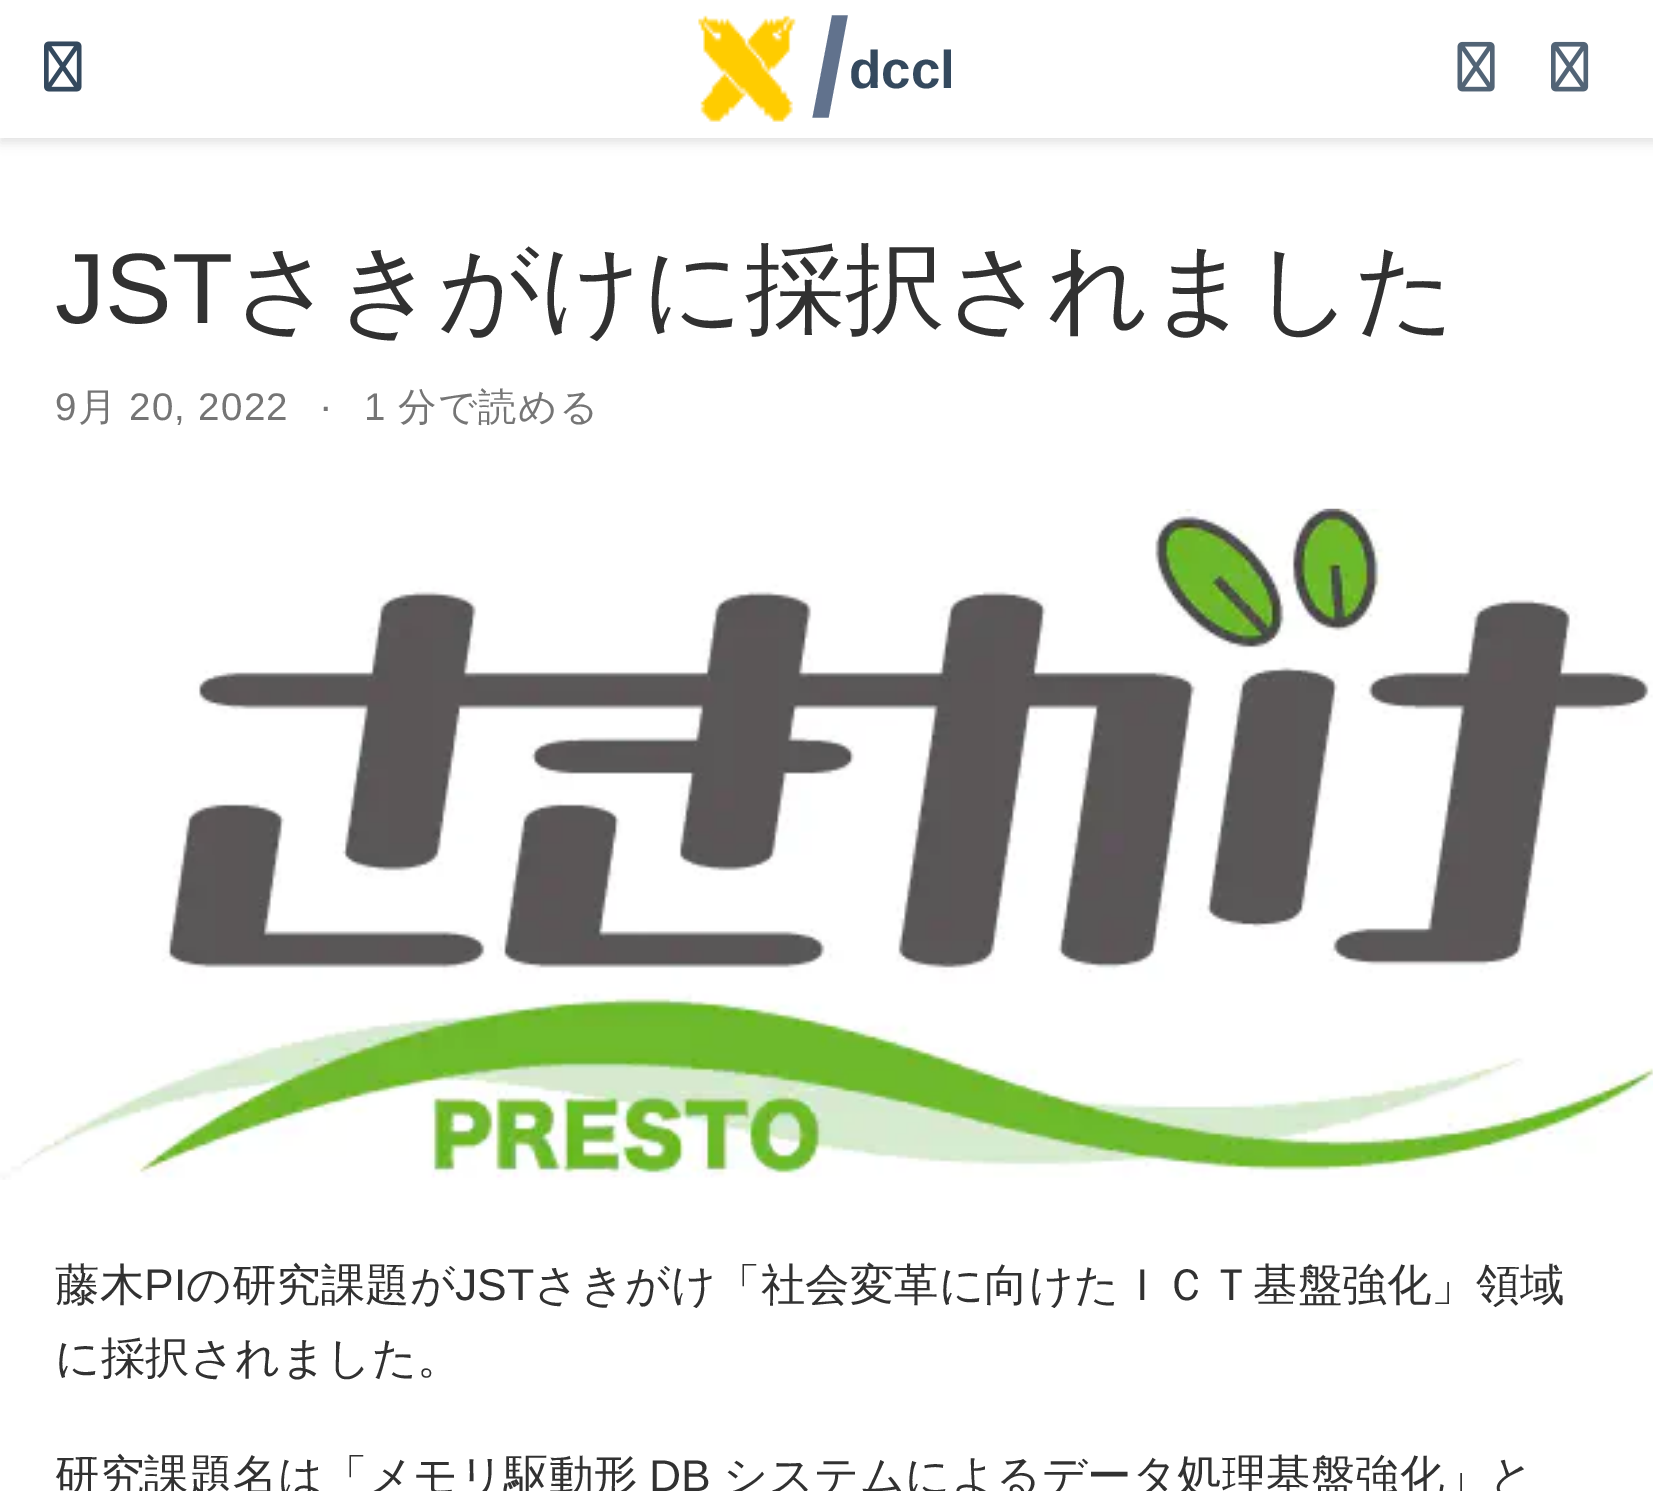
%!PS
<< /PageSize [1653 1491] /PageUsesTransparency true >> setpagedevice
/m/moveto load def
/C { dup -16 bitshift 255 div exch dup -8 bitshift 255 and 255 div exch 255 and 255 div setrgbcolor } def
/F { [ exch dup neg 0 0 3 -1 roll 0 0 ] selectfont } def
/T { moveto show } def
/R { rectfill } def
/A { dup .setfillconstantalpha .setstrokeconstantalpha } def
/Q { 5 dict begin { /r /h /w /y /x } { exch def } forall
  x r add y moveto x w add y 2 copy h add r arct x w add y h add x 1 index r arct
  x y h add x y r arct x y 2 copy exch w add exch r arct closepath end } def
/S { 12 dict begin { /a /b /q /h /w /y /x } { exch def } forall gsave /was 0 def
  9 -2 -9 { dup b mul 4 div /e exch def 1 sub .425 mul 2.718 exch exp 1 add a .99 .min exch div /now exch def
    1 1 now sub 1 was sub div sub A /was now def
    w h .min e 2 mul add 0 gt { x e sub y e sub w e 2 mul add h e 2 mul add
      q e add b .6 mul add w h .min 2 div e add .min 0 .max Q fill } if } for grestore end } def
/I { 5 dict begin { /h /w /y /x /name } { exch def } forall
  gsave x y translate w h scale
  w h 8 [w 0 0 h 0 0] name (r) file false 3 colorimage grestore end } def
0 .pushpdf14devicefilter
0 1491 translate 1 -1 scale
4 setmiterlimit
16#FFFFFF C
0 0 1653 1491 R
16#000000 C
0 6 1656 137 0 5.5 .11 S
16#FFFFFF C
0 0 1653 138 R
(1.rgb) 44 41 38 51 I
(2.rgb) 698 15 98 107 I
/LiberationSans-Bold 138 F
16#61728D C
(/) 811 115 T
/LiberationSans-Bold 53 F
16#34495E C
(dccl) 849 88 T
(3.rgb) 1457 41 38 51 I
(4.rgb) 1551 41 38 51 I
/LiberationSans-Regular 100 F
16#313131 C
(JST) 55 323 T
/WenQuanYiZenHei-Medium 100 F
(さきがけに採択されました) 233 323 T
/LiberationSans-Regular 38.5 F
16#757575 C
55 420 m 1.25 0 (9) ashow
/WenQuanYiZenHei-Medium 38.5 F
78 420 m 1.25 0 (月) ashow
/LiberationSans-Regular 38.5 F
129 420 m 1.25 0 (20, 2022) ashow
/LiberationSans-Regular 41 F
319 420 m 1.25 0 (·) ashow
/LiberationSans-Regular 38.5 F
364 420 m 1.25 0 (1) ashow
/WenQuanYiZenHei-Medium 38.5 F
398 420 m 1.25 0 (分で読める) ashow
(5.rgb) 0 508 1653 672 I
/WenQuanYiZenHei-Medium 44.5 F
16#313131 C
(藤木) 55 1300 T
/LiberationSans-Regular 44.5 F
(PI) 144 1300 T
/WenQuanYiZenHei-Medium 44.5 F
(の研究課題が) 186 1300 T
/LiberationSans-Regular 44.5 F
(JST) 455 1300 T
/WenQuanYiZenHei-Medium 44.5 F
(さきがけ「社会変革に向けたＩＣＴ基盤強化」領域) 534 1300 T
(に採択されました。) 55 1373 T
(研究課題名は「メモリ駆動形) 55 1491 T
/LiberationSans-Regular 44.5 F
(DB) 649 1491 T
/WenQuanYiZenHei-Medium 44.5 F
(システムによるデータ処理基盤強化」と) 723 1491 T
.poppdf14devicefilter showpage
